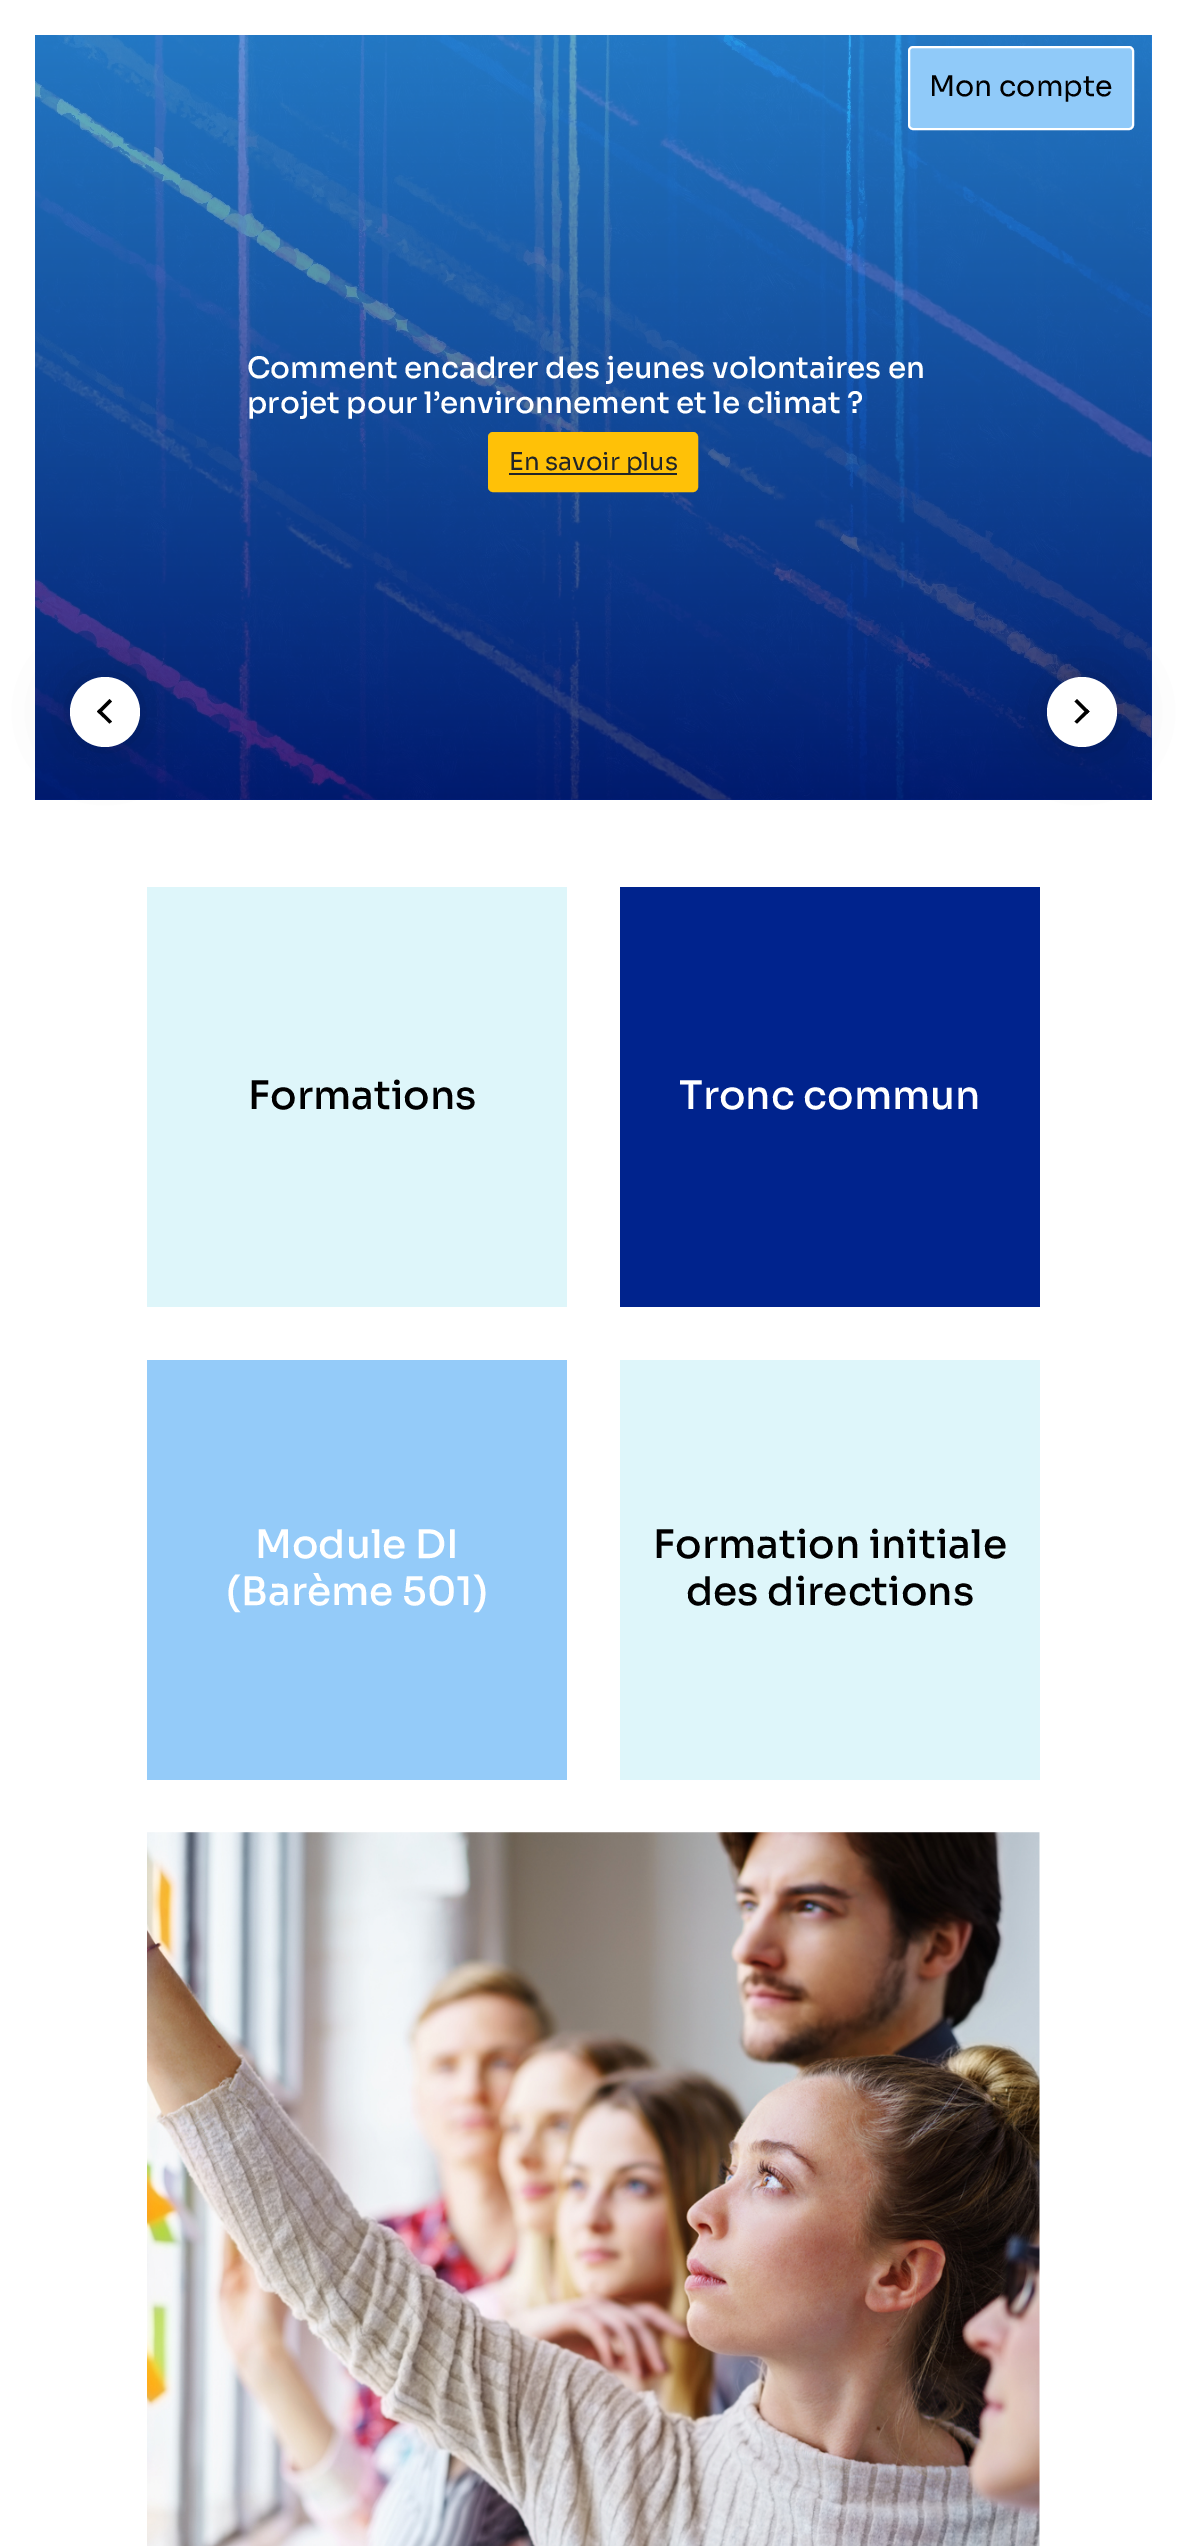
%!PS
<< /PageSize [1186 2546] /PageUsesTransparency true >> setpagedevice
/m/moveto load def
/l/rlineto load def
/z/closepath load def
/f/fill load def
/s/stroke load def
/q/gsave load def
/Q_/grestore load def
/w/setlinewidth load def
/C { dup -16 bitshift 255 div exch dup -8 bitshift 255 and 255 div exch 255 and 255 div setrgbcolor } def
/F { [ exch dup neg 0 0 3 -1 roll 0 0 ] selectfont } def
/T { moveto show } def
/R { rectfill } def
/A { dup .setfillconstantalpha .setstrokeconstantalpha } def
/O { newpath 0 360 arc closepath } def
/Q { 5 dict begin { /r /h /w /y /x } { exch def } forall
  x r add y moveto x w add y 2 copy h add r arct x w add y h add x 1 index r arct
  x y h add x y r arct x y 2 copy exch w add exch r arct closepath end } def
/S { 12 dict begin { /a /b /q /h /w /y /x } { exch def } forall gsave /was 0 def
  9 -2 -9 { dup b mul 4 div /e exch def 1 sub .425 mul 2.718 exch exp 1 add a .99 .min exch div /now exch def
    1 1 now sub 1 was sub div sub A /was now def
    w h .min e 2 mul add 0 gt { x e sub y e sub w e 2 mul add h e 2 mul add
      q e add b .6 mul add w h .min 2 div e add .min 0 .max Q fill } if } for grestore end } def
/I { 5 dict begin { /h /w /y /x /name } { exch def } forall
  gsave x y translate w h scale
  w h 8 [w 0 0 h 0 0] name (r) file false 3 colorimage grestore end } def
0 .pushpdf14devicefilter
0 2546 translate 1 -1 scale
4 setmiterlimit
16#FFFFFF C
0 0 1186 2546 R
16#00238D C
35 35 1117 765 R
(1.rgb) 35 35 1117 765 I
0.75 A
q 35 35 m 1117 0 l 0 765 l -1117 0 l z clip newpath
<< /ShadingType 2 /ColorSpace /DeviceRGB /Coords [593 35 593 800] /Extend [true true] /Function << /FunctionType 2 /Domain [0 1] /C0 [.184 .627 1] /C1 [0 .137 .553] /N 1 >> >> shfill Q_
1 A
16#90CAF9 C
909 47 224 82 4 Q q f Q_
16#FFFFFF C
2 w
s
/Sora-Regular 28.5 F
16#000000 C
(Mon compte) 929 96 T
/Sora-Medium 29.4 F
16#FFFFFF C
(Comment encadrer des jeunes volontaires en) 247 378 T
(projet pour l’environnement et le climat ?) 247 413 T
16#FFC107 C
489 433 208 58 4 Q q f Q_
s
16#212529 C
509 473 168 2 R
/Sora-Regular 24.5 F
(En savoir plus) 509 470 T
16#000000 C
70 677 70 70 35 26 .2 S
16#FFFFFF C
105 712 35 O f
16#000000 C
99.5 709 m 12.5 12.5 l -2.5 2 l -12.5 -12 l z f
109.5 699 m 2.5 2.5 l -12.5 12.5 l -2.5 -2.5 l z f
1047 677 70 70 35 26 .2 S
16#FFFFFF C
1082 712 35 O f
16#000000 C
1087 714 m -12.5 -12.5 l 2.5 -2.5 l 12.5 12.5 l z f
1077 723.5 m -2.5 -2 l 12.5 -12.5 l 2.5 2.5 l z f
16#DEF6FA C
147 887 420 420 R
/Sora-Medium 39.25 F
16#000000 C
(Formations) 248 1109 T
16#00238D C
620 887 420 420 R
16#FFFFFF C
(Tronc commun) 679 1109 T
16#94CBF9 C
147 1360 420 420 R
16#FFFFFF C
(Module DI) 255 1558 T
(\(Barème 501\)) 226 1605 T
16#DEF6FA C
620 1360 420 420 R
16#000000 C
(Formation initiale) 653 1558 T
(des directions) 686 1605 T
(2.rgb) 147 1832 893 714 I
.poppdf14devicefilter showpage
